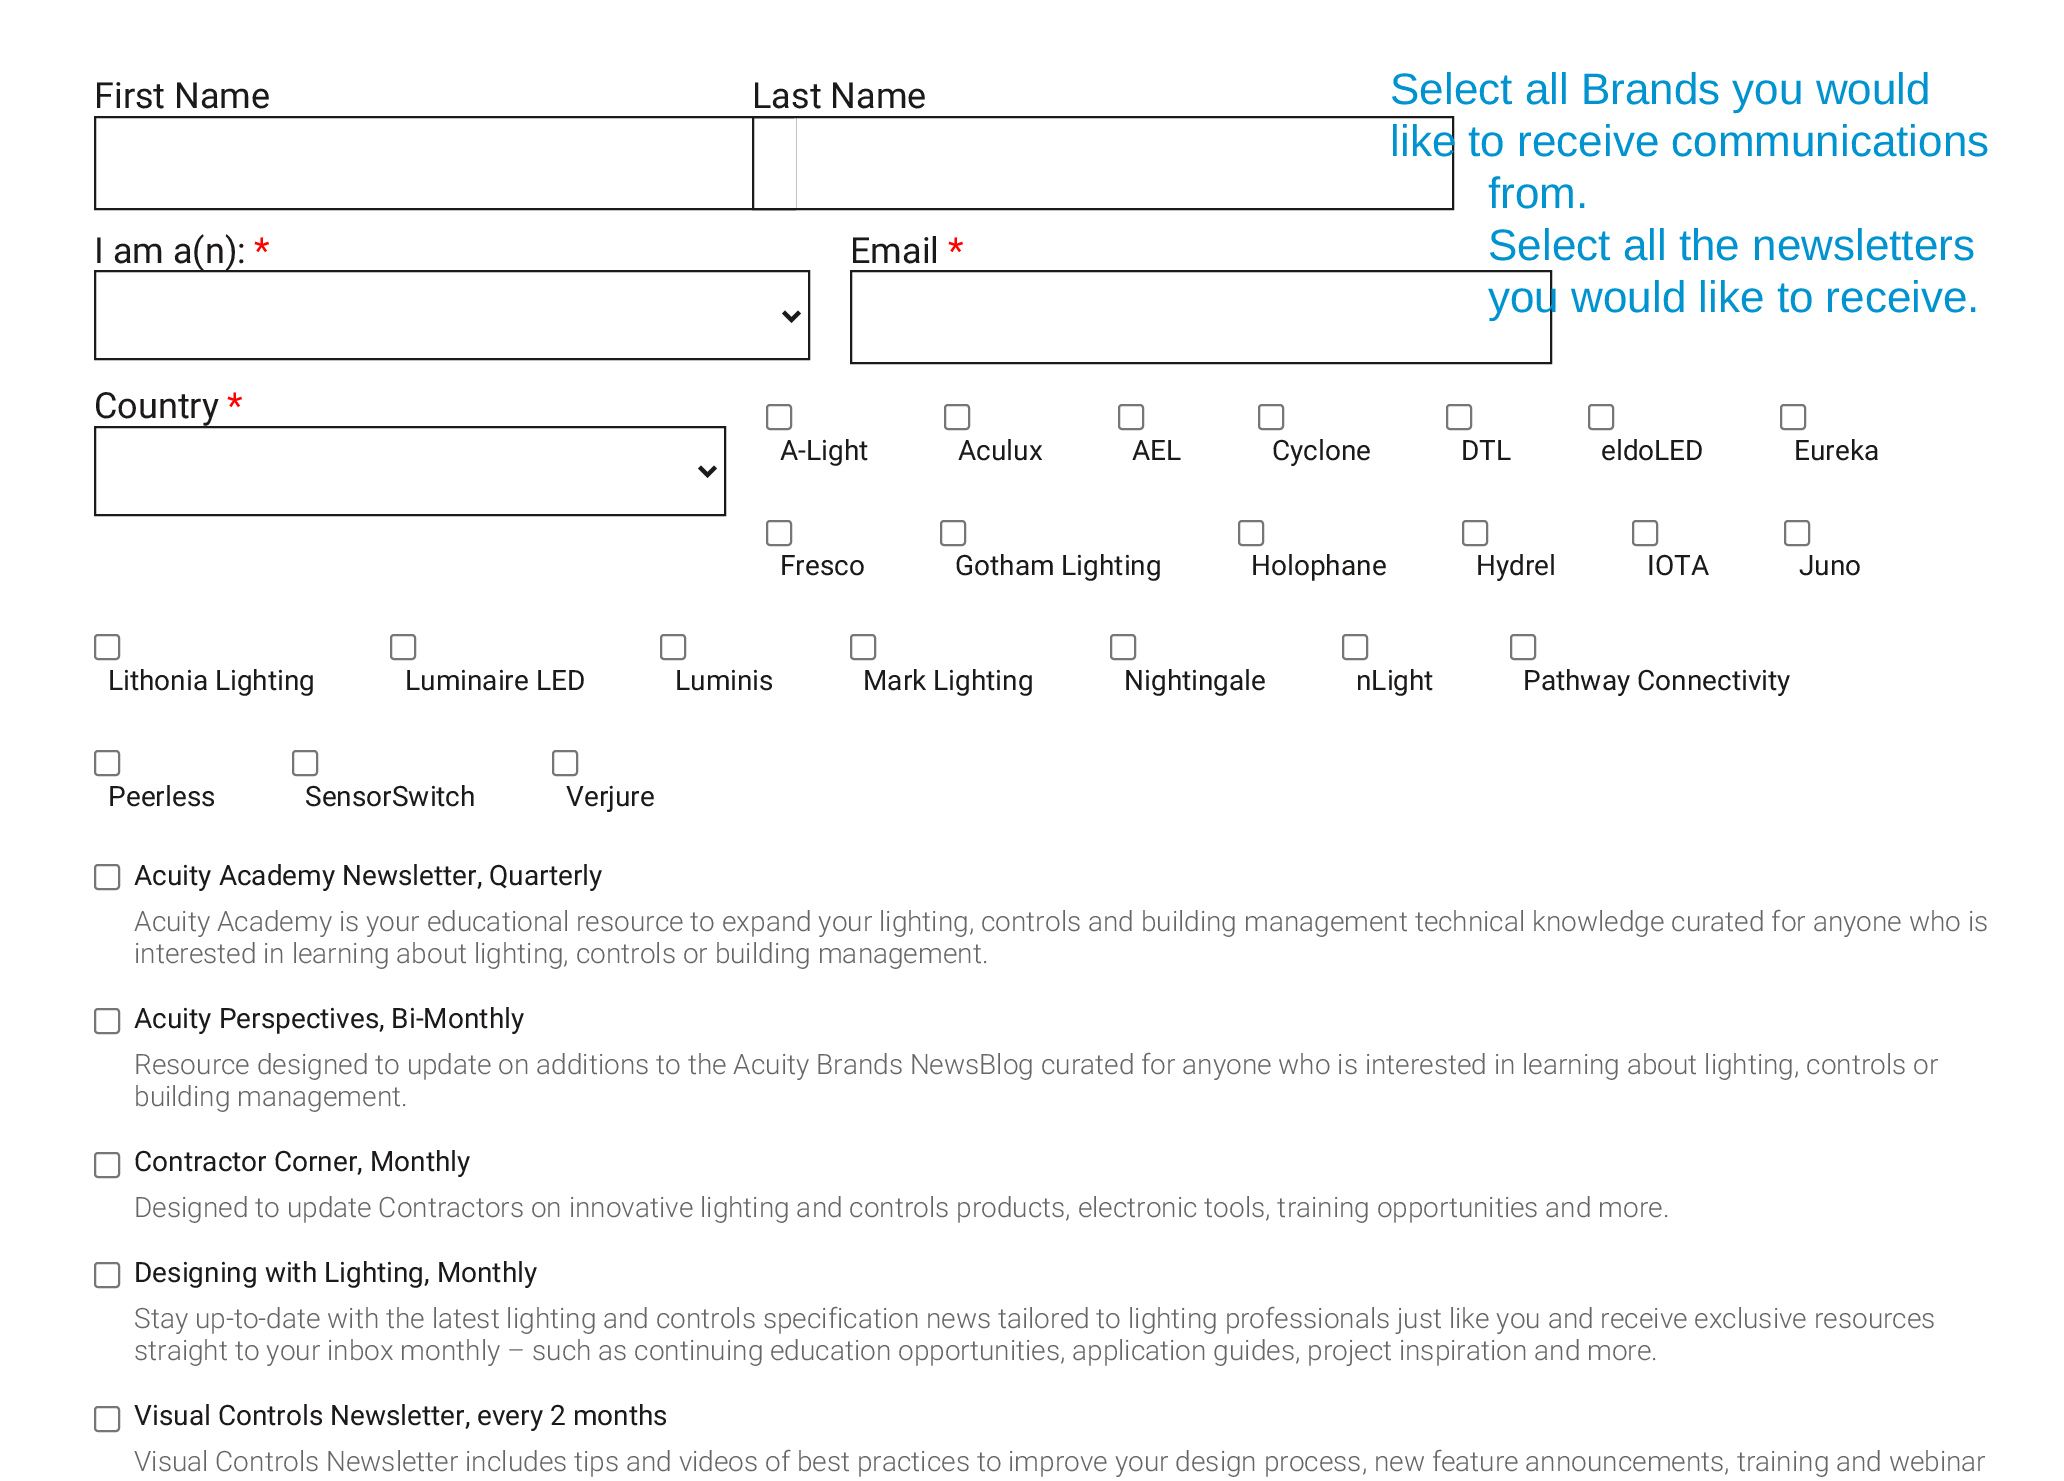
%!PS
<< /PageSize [2064 1481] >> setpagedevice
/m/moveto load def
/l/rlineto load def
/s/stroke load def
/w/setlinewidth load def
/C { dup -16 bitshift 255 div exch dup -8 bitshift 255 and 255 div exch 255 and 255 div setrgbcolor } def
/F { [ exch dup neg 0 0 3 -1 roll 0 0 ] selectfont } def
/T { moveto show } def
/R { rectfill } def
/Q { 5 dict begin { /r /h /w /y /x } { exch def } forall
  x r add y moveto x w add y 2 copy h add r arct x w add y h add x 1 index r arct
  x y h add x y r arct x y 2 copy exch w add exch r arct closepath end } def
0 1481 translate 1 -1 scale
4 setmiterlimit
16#FFFFFF C
0 0 2064 1481 R
/Roboto-Regular 36 F
16#1C1919 C
(First Name) 94 108 T
2 w
95 117 700 92 rectstroke
(Last Name) 752 108 T
16#FFFFFF C
794 118 2 90 R
16#1C1919 C
753 117 700 92 rectstroke
/LiberationSans-Regular 44 F
16#0093D0 C
(Select all Brands you would) 1390 104 T
(like to receive communications) 1390 156 T
(from.) 1488 208 T
16#1C1919 C
95 271 714 88 rectstroke
/Roboto-Regular 36 F
(I am a\(n\):) 94 263 T
16#FF0000 C
(*) 254 263 T
16#1C1919 C
4 w
783.5 312 m 8 8 l 8 -8 l s
(Email) 850 263 T
16#FF0000 C
(*) 948 263 T
16#1C1919 C
2 w
851 271 700 92 rectstroke
/LiberationSans-Regular 44 F
16#0093D0 C
(Select all the newsletters) 1488 260 T
(you would like to receive.) 1488 312 T
/Roboto-Regular 36 F
16#1C1919 C
(Country) 94 418 T
16#FF0000 C
(*) 227 418 T
16#1C1919 C
95 427 630 88 rectstroke
4 w
699.5 467 m 8 8 l 8 -8 l s
16#767676 C
2 w
767 405 24 24 3 Q s
/Roboto-Regular 28 F
16#1C1919 C
(A-Light) 780 460 T
16#767676 C
945 405 24 24 3 Q s
16#1C1919 C
(Aculux) 958 460 T
16#767676 C
1119 405 24 24 3 Q s
16#1C1919 C
(AEL) 1132 460 T
16#767676 C
1259 405 24 24 3 Q s
16#1C1919 C
(Cyclone) 1272 460 T
16#767676 C
1447 405 24 24 3 Q s
16#1C1919 C
(DTL) 1461 460 T
16#767676 C
1589 405 24 24 3 Q s
16#1C1919 C
(eldoLED) 1601 460 T
16#767676 C
1781 405 24 24 3 Q s
16#1C1919 C
(Eureka) 1794 460 T
16#767676 C
767 521 24 24 3 Q s
16#1C1919 C
(Fresco) 780 575 T
16#767676 C
941 521 24 24 3 Q s
16#1C1919 C
(Gotham Lighting) 955 575 T
16#767676 C
1239 521 24 24 3 Q s
16#1C1919 C
(Holophane) 1251 575 T
16#767676 C
1463 521 24 24 3 Q s
16#1C1919 C
(Hydrel) 1476 575 T
16#767676 C
1633 521 24 24 3 Q s
16#1C1919 C
(IOTA) 1647 575 T
16#767676 C
1785 521 24 24 3 Q s
16#1C1919 C
(Juno) 1799 575 T
16#767676 C
95 635 24 24 3 Q s
16#1C1919 C
(Lithonia Lighting) 108 690 T
16#767676 C
391 635 24 24 3 Q s
16#1C1919 C
(Luminaire LED) 405 690 T
16#767676 C
661 635 24 24 3 Q s
16#1C1919 C
(Luminis) 675 690 T
16#767676 C
851 635 24 24 3 Q s
16#1C1919 C
(Mark Lighting) 863 690 T
16#767676 C
1111 635 24 24 3 Q s
16#1C1919 C
(Nightingale) 1124 690 T
16#767676 C
1343 635 24 24 3 Q s
16#1C1919 C
(nLight) 1356 690 T
16#767676 C
1511 635 24 24 3 Q s
16#1C1919 C
(Pathway Connectivity) 1523 690 T
16#767676 C
95 751 24 24 3 Q s
16#1C1919 C
(Peerless) 108 806 T
16#767676 C
293 751 24 24 3 Q s
16#1C1919 C
(SensorSwitch) 305 806 T
16#767676 C
553 751 24 24 3 Q s
16#1C1919 C
(Verjure) 566 806 T
16#767676 C
95 865 24 24 3 Q s
16#1C1919 C
(Acuity Academy Newsletter, Quarterly) 134 885 T
/Roboto-Light 28 F
16#666666 C
(Acuity Academy is your educational resource to expand your lighting, controls and building management technical knowledge curated for anyone who is) 134 931 T
(interested in learning about lighting, controls or building management.) 134 963 T
16#767676 C
95 1009 24 24 3 Q s
/Roboto-Regular 28 F
16#1C1919 C
(Acuity Perspectives, Bi-Monthly) 134 1028 T
/Roboto-Light 28 F
16#666666 C
(Resource designed to update on additions to the Acuity Brands NewsBlog curated for anyone who is interested in learning about lighting, controls or) 134 1074 T
(building management.) 134 1106 T
16#767676 C
95 1153 24 24 3 Q s
/Roboto-Regular 28 F
16#1C1919 C
(Contractor Corner, Monthly) 134 1171 T
/Roboto-Light 28 F
16#666666 C
(Designed to update Contractors on innovative lighting and controls products, electronic tools, training opportunities and more.) 134 1217 T
16#767676 C
95 1263 24 24 3 Q s
/Roboto-Regular 28 F
16#1C1919 C
(Designing with Lighting, Monthly) 134 1282 T
/Roboto-Light 28 F
16#666666 C
(Stay up-to-date with the latest lighting and controls specification news tailored to lighting professionals just like you and receive exclusive resources) 134 1328 T
(straight to your inbox monthly – such as continuing education opportunities, application guides, project inspiration and more.) 134 1360 T
16#767676 C
95 1407 24 24 3 Q s
/Roboto-Regular 28 F
16#1C1919 C
(Visual Controls Newsletter, every 2 months) 134 1425 T
/Roboto-Light 28 F
16#666666 C
(Visual Controls Newsletter includes tips and videos of best practices to improve your design process, new feature announcements, training and webinar) 134 1471 T
showpage
